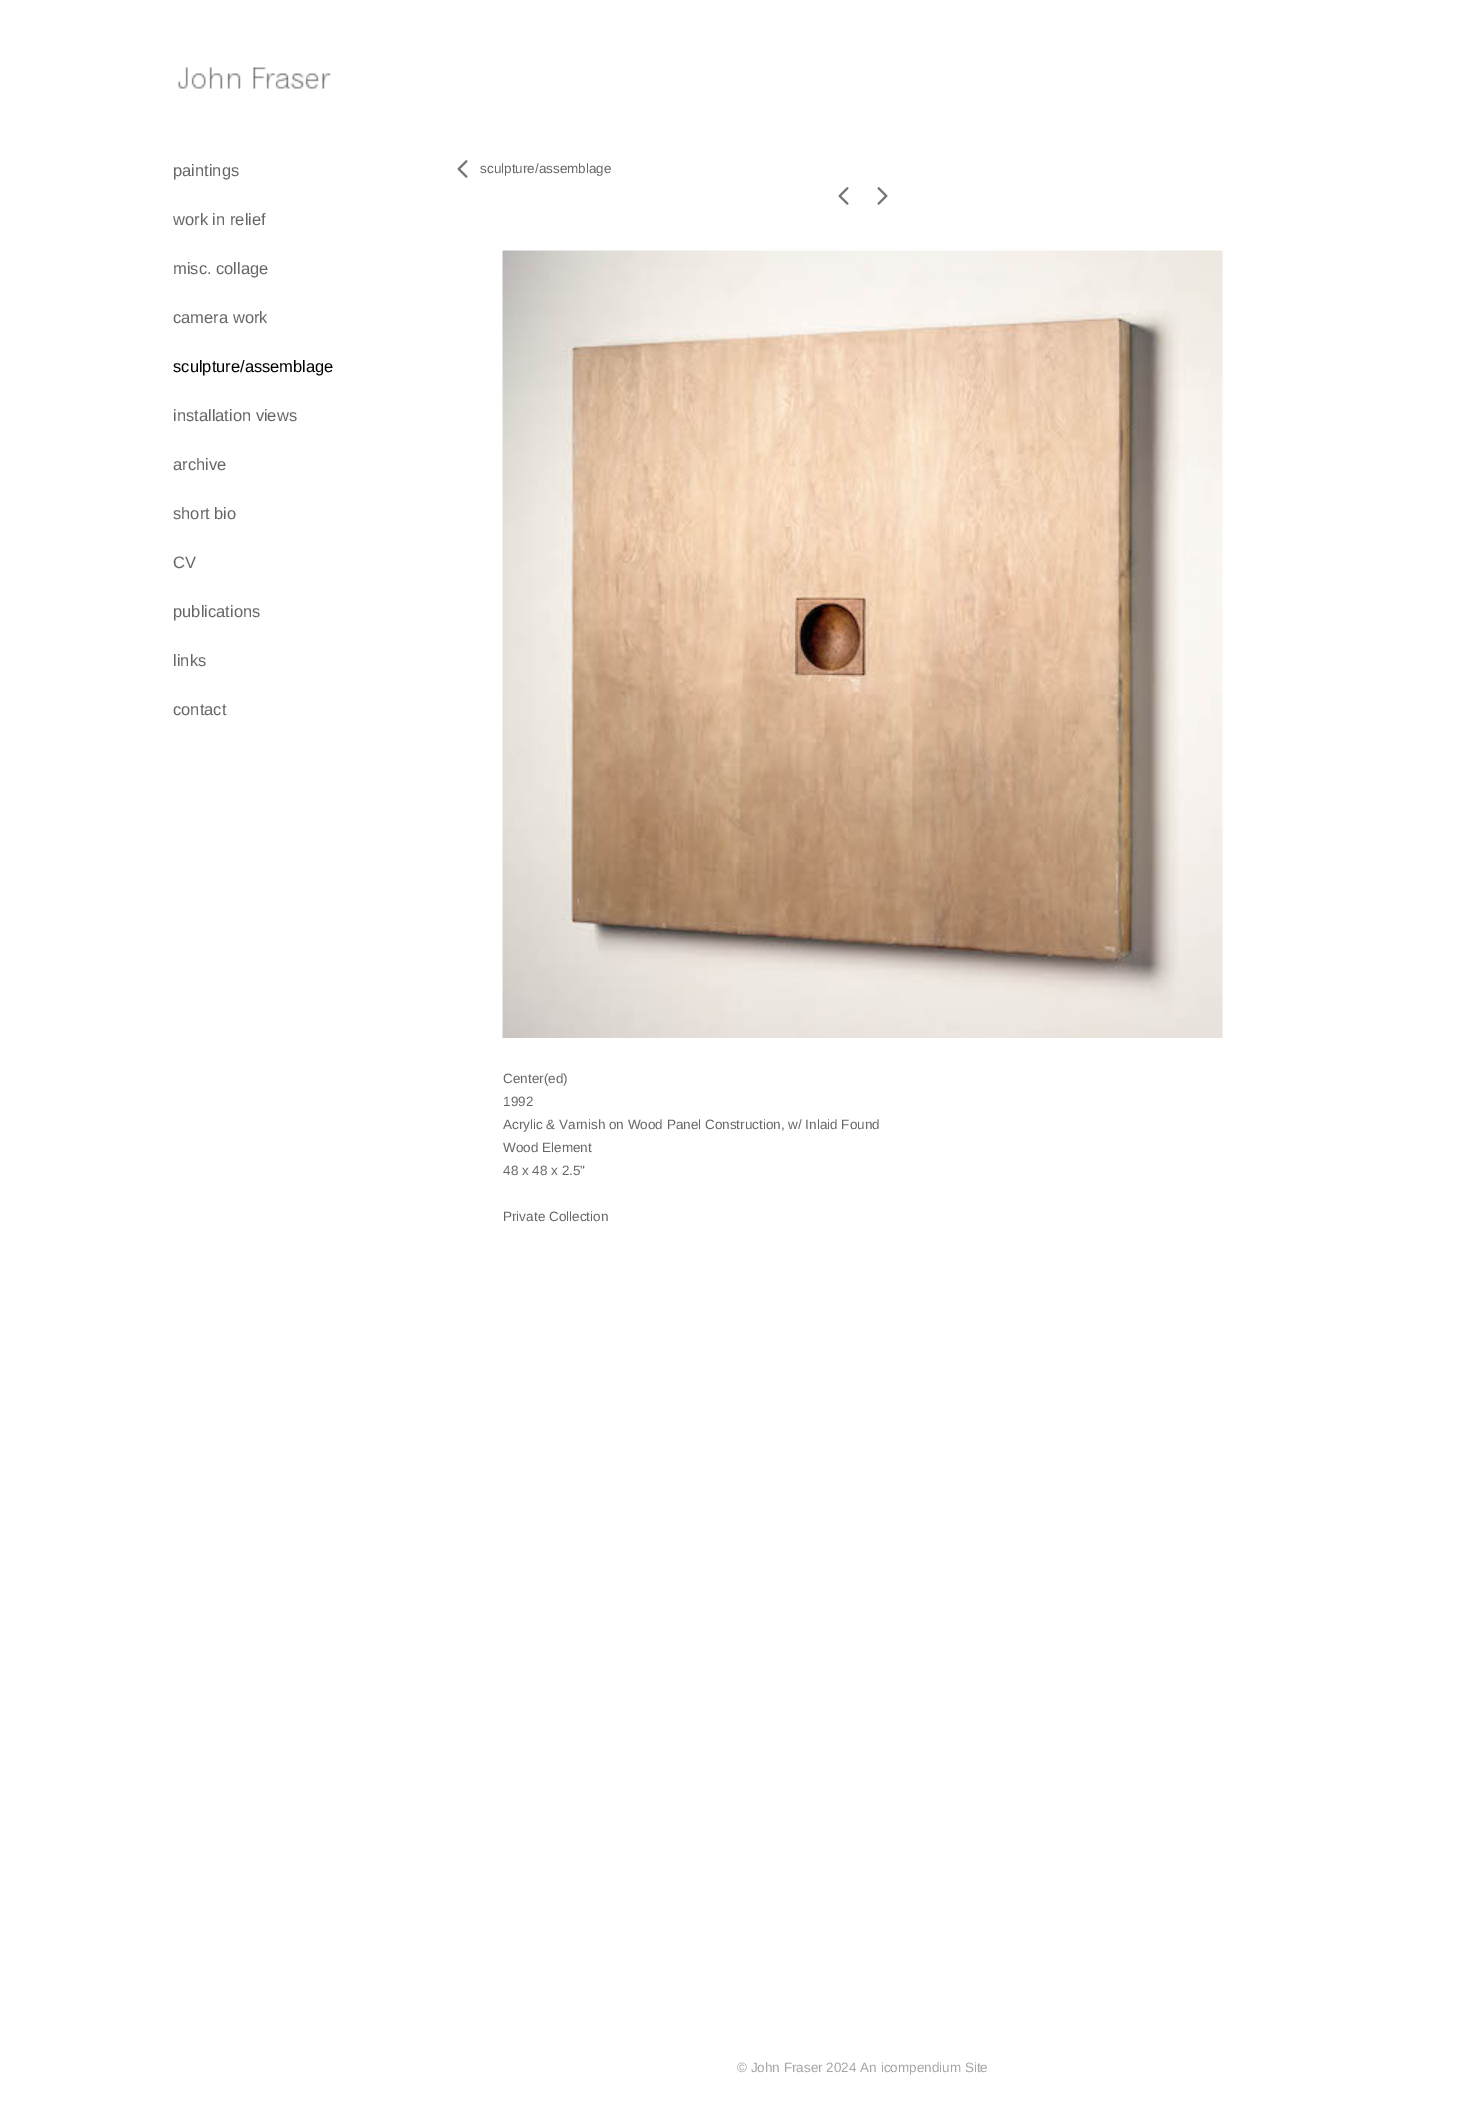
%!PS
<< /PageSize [1462 2101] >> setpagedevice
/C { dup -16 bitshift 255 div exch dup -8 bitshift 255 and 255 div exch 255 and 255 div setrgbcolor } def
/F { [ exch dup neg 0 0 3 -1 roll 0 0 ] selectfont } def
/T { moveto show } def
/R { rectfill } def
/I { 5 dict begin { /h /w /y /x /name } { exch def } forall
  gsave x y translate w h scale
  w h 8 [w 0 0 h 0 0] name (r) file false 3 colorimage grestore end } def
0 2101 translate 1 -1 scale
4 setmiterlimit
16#FFFFFF C
0 0 1462 2101 R
(1.rgb) 178 67 153 22 I
/LiberationSans-Regular 16.5 F
16#666666 C
(paintings) 173 176 T
(work in relief) 173 225 T
(misc. collage) 173 274 T
(camera work) 173 323 T
16#000000 C
(sculpture/assemblage) 173 372 T
16#666666 C
(installation views) 173 421 T
(archive) 173 470 T
(short bio) 173 519 T
(CV) 173 568 T
(publications) 173 617 T
(links) 173 666 T
(contact) 173 715 T
(2.rgb) 457 160 11 18 I
/LiberationSans-Regular 13.5 F
(sculpture/assemblage) 480 173 T
(2.rgb) 838 187 11 18 I
(3.rgb) 877 187 11 18 I
(4.rgb) 502 250 721 788 I
(Center\(ed\)) 503 1083 T
(1992) 503 1106 T
(Acrylic & Varnish on Wood Panel Construction, w/ Inlaid Found) 503 1129 T
(Wood Element) 503 1152 T
(48 x 48 x 2.5") 503 1175 T
(Private Collection) 503 1221 T
16#A4A4A4 C
(© John Fraser 2024 An icompendium Site) 737 2072 T
showpage
